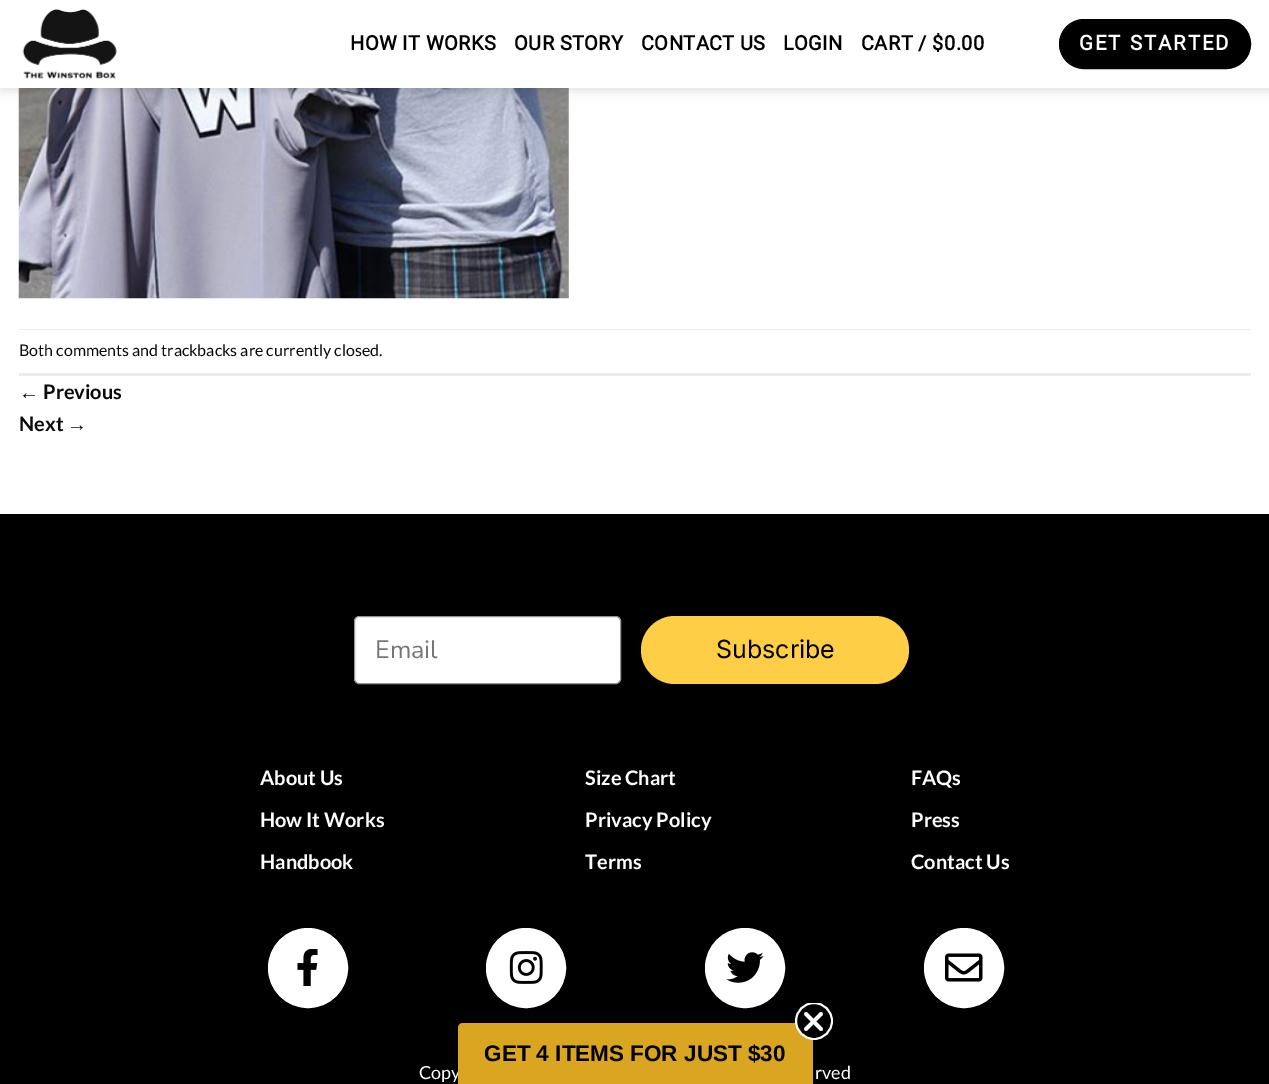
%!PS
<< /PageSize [1269 1084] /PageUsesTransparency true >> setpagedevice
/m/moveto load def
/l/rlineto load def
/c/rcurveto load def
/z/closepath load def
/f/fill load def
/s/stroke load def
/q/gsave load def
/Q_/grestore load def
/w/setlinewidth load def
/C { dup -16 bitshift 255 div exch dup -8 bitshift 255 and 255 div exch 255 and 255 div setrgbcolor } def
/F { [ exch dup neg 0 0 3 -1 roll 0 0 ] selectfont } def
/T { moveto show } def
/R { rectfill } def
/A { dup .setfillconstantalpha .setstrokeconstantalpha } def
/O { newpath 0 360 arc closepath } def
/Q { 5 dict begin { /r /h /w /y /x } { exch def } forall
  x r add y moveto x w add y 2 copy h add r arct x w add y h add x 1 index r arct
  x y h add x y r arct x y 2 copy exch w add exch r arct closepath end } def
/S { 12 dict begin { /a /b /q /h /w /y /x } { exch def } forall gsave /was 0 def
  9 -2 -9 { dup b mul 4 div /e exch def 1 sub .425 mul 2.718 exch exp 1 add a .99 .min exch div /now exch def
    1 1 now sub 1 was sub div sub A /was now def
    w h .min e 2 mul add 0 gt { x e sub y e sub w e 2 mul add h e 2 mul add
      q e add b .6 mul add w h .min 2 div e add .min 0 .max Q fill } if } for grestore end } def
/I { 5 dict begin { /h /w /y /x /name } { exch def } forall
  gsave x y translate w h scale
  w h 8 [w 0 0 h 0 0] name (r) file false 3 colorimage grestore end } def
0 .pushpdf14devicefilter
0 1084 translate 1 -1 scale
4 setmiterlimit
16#FFFFFF C
0 0 1269 1084 R
(2.rgb) 18 88 551 211 I
16#000000 C
1 1 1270 88 0 6 .15 S
16#FFFFFF C
0 0 1269 88 R
(1.rgb) 22 9 95 70 I
/Roboto-Bold 20 F
16#000000 C
350 50 m .4 0 (HOW IT WORKS) ashow
514 50 m .4 0 (OUR STORY) ashow
641 50 m .4 0 (CONTACT US) ashow
783 50 m .4 0 (LOGIN) ashow
861 50 m .4 0 (CART / $0.00) ashow
1059.5 19.5 191 49 24.5 Q q f Q_
s
/Roboto-Bold 20.5 F
16#FFFFFF C
1079 50 m 1.9 0 (GET STARTED) ashow
16#ECECEC C
19 329 1232 1 R
19 373 1232 3 R
/Lato-Regular 16 F
16#0A0A0A C
(Both comments and trackbacks are currently closed.) 19 356 T
/LiberationSans-Bold 20 F
(←) 19 399 T
/Lato-Bold 20 F
(Previous) 43 399 T
(Next) 19 431 T
/LiberationSans-Bold 20 F
(→) 67 431 T
16#000000 C
0 514 1269 570 R
16#FFFFFF C
354.5 616.5 266 67 4.5 Q q f Q_
16#949596 C
s
/NunitoSans-Regular 25 F
16#767676 C
(Email) 375 658 T
16#FFCE47 C
641 616 268 68 34 Q f
/Inter-Regular 25 F
16#000000 C
(Subscribe) 716 658 T
/Lato-Bold 20 F
16#FFFFFF C
(About Us) 260 785 T
(How It Works) 260 827 T
(Handbook) 260 869 T
(Size Chart) 585 785 T
(Privacy Policy) 585 827 T
(Terms) 585 869 T
(FAQs) 911 785 T
(Press) 911 827 T
(Contact Us) 911 869 T
308 968 39.5 O q f Q_
s
(3.rgb) 297 949 21 37 I
526 968 39.5 O q f Q_
s
(4.rgb) 509 951 34 33 I
745 968 39.5 O q f Q_
s
(5.rgb) 726 952 38 31 I
964 968 39.5 O q f Q_
s
(6.rgb) 945 953 38 29 I
/Lato-Regular 18 F
(Copy) 419 1079 T
(rved) 815 1079 T
16#DAA521 C
463 1023 m 345 0 l 3 0 5 2 5 5 c 0 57 l -355 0 l 0 -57 l 0 -3 2 -5 5 -5 c z f
16#000000 C
814 1021 18 O f
q
795 1003 38 37 rectclip
16#FFFFFF C
1.9 w
814 1021 18 O s
Q_
16#FFFFFF C
3.8 w
1 setlinecap
1 setlinejoin
806 1014 m 15 15 l 806 1029 m 15 -15 l z s
/LiberationSans-Bold 22.5 F
16#000000 C
(GET 4 ITEMS FOR JUST $30) 484 1061 T
.poppdf14devicefilter showpage
